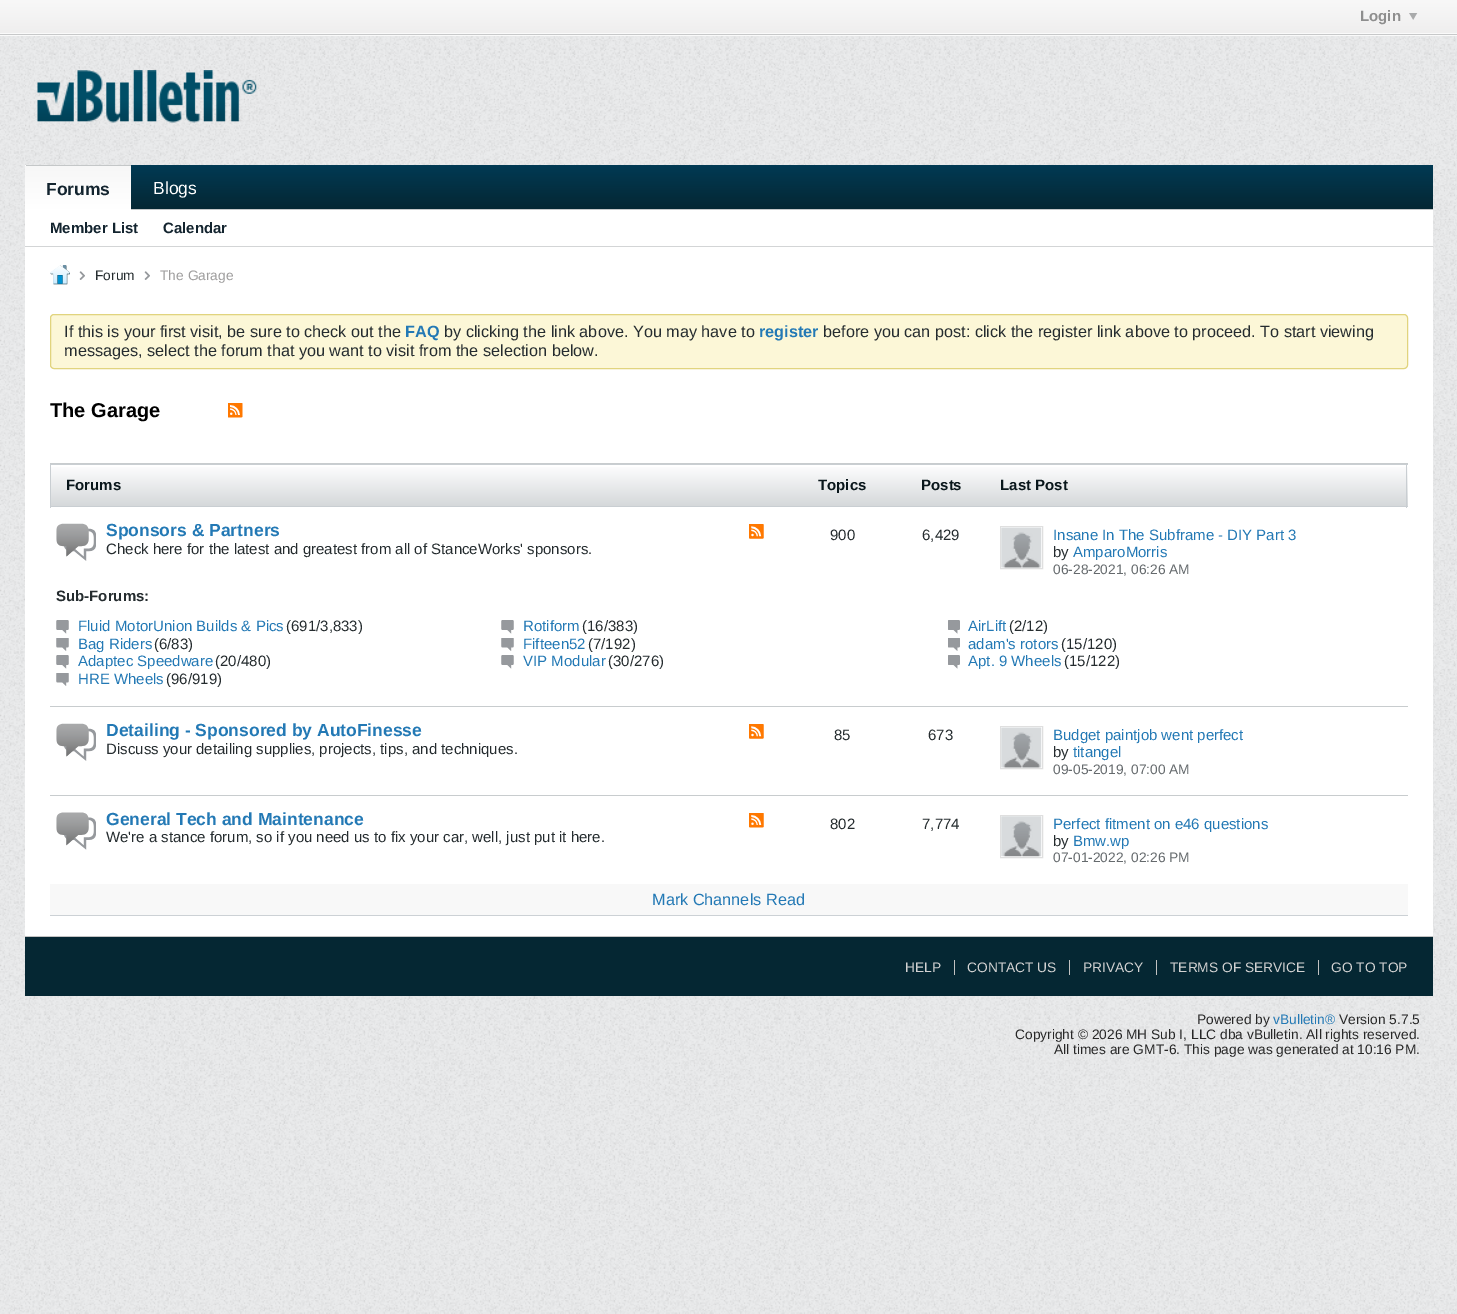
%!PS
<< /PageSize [1457 1314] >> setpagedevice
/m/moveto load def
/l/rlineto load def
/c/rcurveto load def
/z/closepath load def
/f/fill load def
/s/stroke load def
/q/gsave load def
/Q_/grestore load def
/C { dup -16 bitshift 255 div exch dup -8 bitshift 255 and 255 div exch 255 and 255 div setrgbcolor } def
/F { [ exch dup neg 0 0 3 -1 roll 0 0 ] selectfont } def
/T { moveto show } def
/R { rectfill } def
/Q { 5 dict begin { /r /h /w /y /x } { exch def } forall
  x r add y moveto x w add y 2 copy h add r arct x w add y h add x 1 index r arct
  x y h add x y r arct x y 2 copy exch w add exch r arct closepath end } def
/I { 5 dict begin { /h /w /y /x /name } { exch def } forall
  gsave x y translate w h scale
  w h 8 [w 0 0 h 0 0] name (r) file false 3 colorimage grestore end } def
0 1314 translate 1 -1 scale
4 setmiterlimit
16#EAEBEC C
0 0 1457 1314 R
(1.rgb) 0 36 1457 1278 I
q 0 0 m 1457 0 l 0 33 l -1457 0 l z clip newpath
<< /ShadingType 2 /ColorSpace /DeviceRGB /Coords [729 0 729 35] /Extend [true true] /Function << /FunctionType 2 /Domain [0 1] /C0 [.973 .973 .973] /C1 [.937 .929 .933] /N 1 >> >> shfill Q_
/LiberationSans-Bold 15 F
16#8E8E8E C
(Login) 1360 21 T
(2.rgb) 1409 13 9 7 I
16#FAFAFA C
0 33 1457 3 R
16#C7C8C9 C
0 34 1457 1 R
16#EAEBEC C
25 36 1408 129 R
(3.rgb) 25 36 1408 129 I
(4.rgb) 37 70 220 53 I
q 25 165 m 1408 0 l 0 44 l -1408 0 l z clip newpath
<< /ShadingType 2 /ColorSpace /DeviceRGB /Coords [729 165 729 209] /Extend [true true] /Function << /FunctionType 2 /Domain [0 1] /C0 [.004 .227 .329] /C1 [.02 .153 .2] /N 1 >> >> shfill Q_
16#C4C7C8 C
131 209 1302 1 R
q 26 165 m 104 0 l .5 0 1 .5 1 1 c -106 0 l 0 -.5 .5 -1 1 -1 c z clip newpath
<< /ShadingType 2 /ColorSpace /DeviceRGB /Coords [78 123 78 166] /Extend [true true] /Function << /FunctionType 2 /Domain [0 1] /C0 [.969 .969 .969] /C1 [1 1 1] /N 1 >> >> shfill Q_
q 25 166 m 106 0 l 0 44 l -106 0 l z clip newpath
<< /ShadingType 2 /ColorSpace /DeviceRGB /Coords [78 166 78 210] /Extend [true true] /Function << /FunctionType 2 /Domain [0 1] /C0 [.969 .969 .969] /C1 [1 1 1] /N 1 >> >> shfill Q_
26 165 105 1 R
/LiberationSans-Bold 17.5 F
16#13242F C
(Forums) 46 195 T
/LiberationSans-Regular 17.5 F
16#FFFFFF C
(Blogs) 153 194 T
25 210 1408 726 R
16#D3D5D6 C
25 246 1408 1 R
/LiberationSans-Bold 15 F
16#13242F C
(Member List) 50 233 T
(Calendar) 163 233 T
(5.rgb) 50 265 20 20 I
(6.rgb) 79 271 6 9 I
/LiberationSans-Regular 13.75 F
16#252C2F C
(Forum) 95 280 T
(6.rgb) 144 271 6 9 I
16#9E9D9D C
(The Garage) 160 280 T
16#FCF7D7 C
50.5 314.5 1357 54 3.5 Q q f Q_
16#E1D47E C
s
/LiberationSans-Regular 16.25 F
16#252C2F C
(If this is your first visit, be sure to check out the) 64 337 T
/LiberationSans-Bold 16.25 F
16#2379B5 C
(FAQ) 405 337 T
/LiberationSans-Regular 16.25 F
16#252C2F C
(by clicking the link above. You may have to) 444 337 T
/LiberationSans-Bold 16.25 F
16#2379B5 C
(register) 759 337 T
/LiberationSans-Regular 16.25 F
16#252C2F C
(before you can post: click the register link above to proceed. To start viewing) 823 337 T
(messages, select the forum that you want to visit from the selection below.) 64 356 T
/LiberationSans-Bold 20 F
16#000000 C
(The Garage) 50 417 T
(7.rgb) 228 403 15 15 I
16#C8CCCE C
50 463 1358 1 R
q 51 467 m 1357 0 l 0 39 l -1357 0 l z clip newpath
<< /ShadingType 2 /ColorSpace /DeviceRGB /Coords [729 465 729 506] /Extend [true true] /Function << /FunctionType 2 /Domain [0 1] /C0 [.996 .996 1] /C1 [.835 .847 .855] /N 1 >> >> shfill Q_
16#C9CED2 C
50 464 1358 1 R
50 506 1358 1 R
50 464 1 44 R
/LiberationSans-Bold 15 F
16#09161B C
(Forums) 66 490 T
(Topics) 818 490 T
(Posts) 921 490 T
16#C9CED2 C
1406 464 1 44 R
16#09161B C
(Last Post) 1000 490 T
(8.rgb) 56 523 40 38 I
/LiberationSans-Bold 17.5 F
16#2379B5 C
(Sponsors & Partners) 106 536 T
/LiberationSans-Regular 15 F
16#252C2F C
(Check here for the latest and greatest from all of StanceWorks' sponsors.) 106 554 T
(9.rgb) 749 524 15 15 I
(900) 830 540 T
(6,429) 922 540 T
16#DFDFDF C
1000.5 526.5 42 42 rectstroke
(10.rgb) 1001 527 41 41 I
16#2379B5 C
(Insane In The Subframe - DIY Part 3) 1053 540 T
16#252C2F C
(by) 1053 557 T
16#2379B5 C
(AmparoMorris) 1073 557 T
/LiberationSans-Regular 13.75 F
16#656A6D C
(06-28-2021, 06:26 AM) 1053 574 T
/LiberationSans-Bold 15 F
16#252C2F C
(Sub-Forums:) 56 601 T
(11.rgb) 56 620 13 14 I
/LiberationSans-Regular 15 F
16#2379B5 C
(Fluid MotorUnion Builds & Pics) 78 631 T
16#252C2F C
(\(691/3,833\)) 286 631 T
(12.rgb) 501 620 13 14 I
16#2379B5 C
(Rotiform) 523 631 T
16#252C2F C
(\(16/383\)) 582 631 T
(13.rgb) 948 620 12 14 I
16#2379B5 C
(AirLift) 968 631 T
16#252C2F C
(\(2/12\)) 1009 631 T
(14.rgb) 56 638 13 13 I
16#2379B5 C
(Bag Riders) 78 649 T
16#252C2F C
(\(6/83\)) 154 649 T
(15.rgb) 501 638 13 13 I
16#2379B5 C
(Fifteen52) 523 649 T
16#252C2F C
(\(7/192\)) 588 649 T
(16.rgb) 948 638 12 13 I
16#2379B5 C
(adam's rotors) 968 649 T
16#252C2F C
(\(15/120\)) 1061 649 T
(11.rgb) 56 655 13 14 I
16#2379B5 C
(Adaptec Speedware) 78 666 T
16#252C2F C
(\(20/480\)) 215 666 T
(12.rgb) 501 655 13 14 I
16#2379B5 C
(VIP Modular) 523 666 T
16#252C2F C
(\(30/276\)) 608 666 T
(13.rgb) 948 655 12 14 I
16#2379B5 C
(Apt. 9 Wheels) 968 666 T
16#252C2F C
(\(15/122\)) 1064 666 T
(14.rgb) 56 673 13 13 I
16#2379B5 C
(HRE Wheels) 78 684 T
16#252C2F C
(\(96/919\)) 166 684 T
16#C8CCCE C
50 706 1358 1 R
(8.rgb) 56 723 40 38 I
/LiberationSans-Bold 17.5 F
16#2379B5 C
(Detailing - Sponsored by AutoFinesse) 106 736 T
/LiberationSans-Regular 15 F
16#252C2F C
(Discuss your detailing supplies, projects, tips, and techniques.) 106 754 T
(9.rgb) 749 724 15 15 I
(85) 834 740 T
(673) 928 740 T
16#DFDFDF C
1000.5 726.5 42 42 rectstroke
(10.rgb) 1001 727 41 41 I
16#2379B5 C
(Budget paintjob went perfect) 1053 740 T
16#252C2F C
(by) 1053 757 T
16#2379B5 C
(titangel) 1073 757 T
/LiberationSans-Regular 13.75 F
16#656A6D C
(09-05-2019, 07:00 AM) 1053 774 T
16#C8CCCE C
50 795 1358 1 R
(17.rgb) 56 812 40 38 I
/LiberationSans-Bold 17.5 F
16#2379B5 C
(General Tech and Maintenance) 106 825 T
/LiberationSans-Regular 15 F
16#252C2F C
(We're a stance forum, so if you need us to fix your car, well, just put it here.) 106 842 T
(18.rgb) 749 813 15 15 I
(802) 830 829 T
(7,774) 922 829 T
16#DFDFDF C
1000.5 815.5 42 42 rectstroke
(19.rgb) 1001 816 41 41 I
16#2379B5 C
(Perfect fitment on e46 questions) 1053 829 T
16#252C2F C
(by) 1053 846 T
16#2379B5 C
(Bmw.wp) 1073 846 T
/LiberationSans-Regular 13.75 F
16#656A6D C
(07-01-2022, 02:26 PM) 1053 862 T
16#F8F8F8 C
50 884 1358 31 R
16#CCD1D5 C
50 915 1358 1 R
/LiberationSans-Regular 16.25 F
16#2379B5 C
(Mark Channels Read) 652 905 T
16#052733 C
25 937 1408 59 R
16#C2C2C2 C
25 936 1408 1 R
/LiberationSans-Regular 13.75 F
16#D2D2D2 C
(HELP) 905 972 T
(CONTACT US) 967 972 T
16#C2C2C2 C
954 960 1 15 R
16#D2D2D2 C
(PRIVACY) 1083 972 T
16#C2C2C2 C
1069 960 1 15 R
16#D2D2D2 C
(TERMS OF SERVICE) 1170 972 T
16#C2C2C2 C
1156 960 1 15 R
16#D2D2D2 C
(GO TO TOP) 1331 972 T
16#C2C2C2 C
1318 960 1 15 R
16#272727 C
(Powered by) 1197 1024 T
16#2379B5 C
(vBulletin®) 1273 1024 T
16#272727 C
(Version 5.7.5) 1339 1024 T
(Copyright © 2026 MH Sub I, LLC dba vBulletin. All rights reserved.) 1015 1039 T
(All times are GMT-6. This page was generated at 10:16 PM.) 1054 1054 T
showpage
